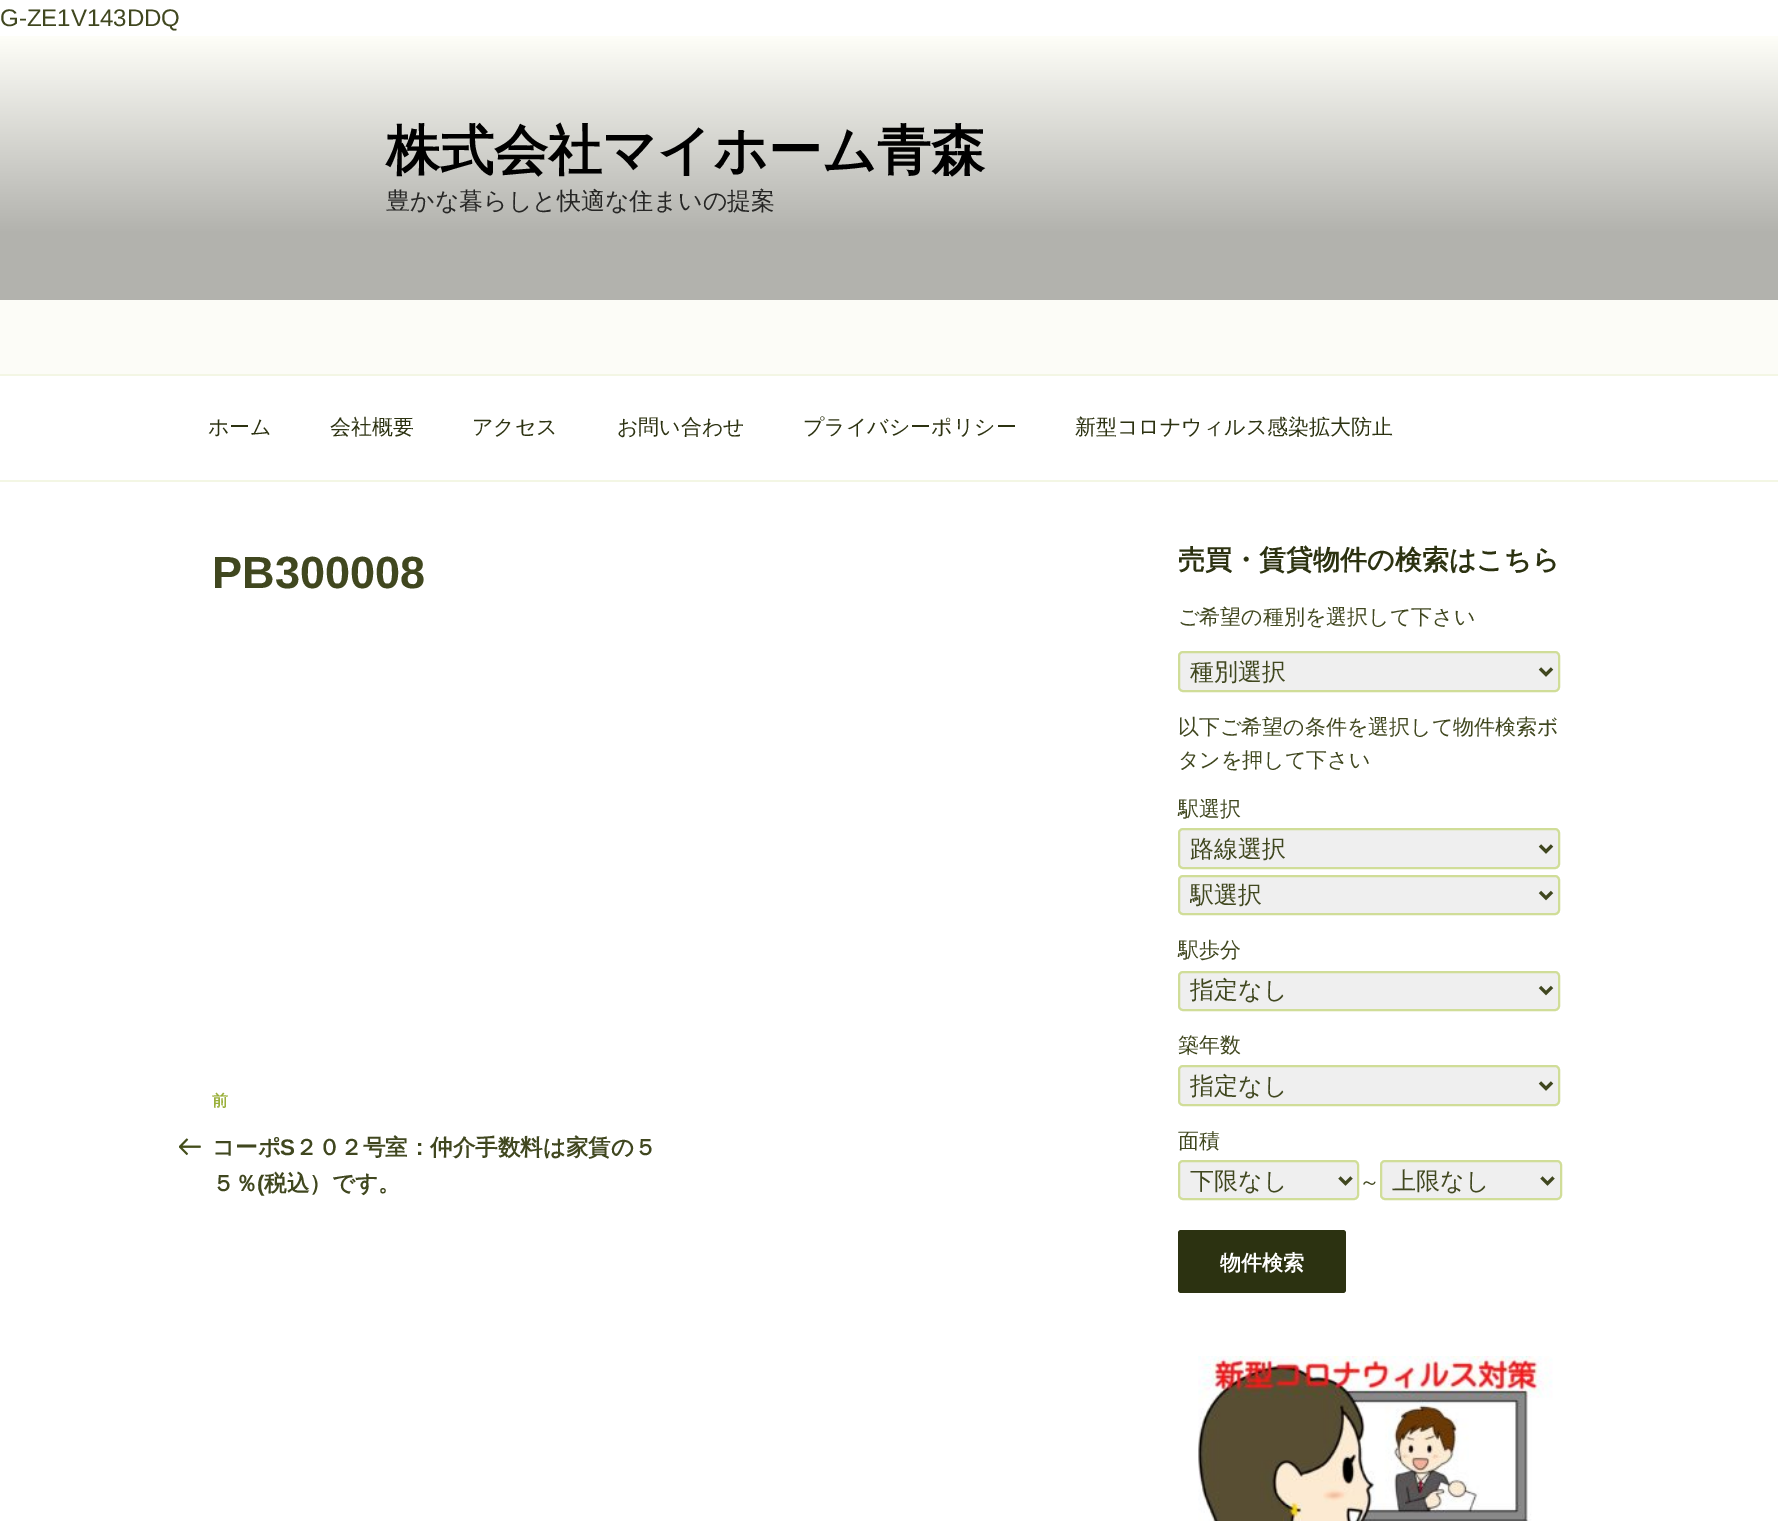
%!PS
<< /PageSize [1778 1521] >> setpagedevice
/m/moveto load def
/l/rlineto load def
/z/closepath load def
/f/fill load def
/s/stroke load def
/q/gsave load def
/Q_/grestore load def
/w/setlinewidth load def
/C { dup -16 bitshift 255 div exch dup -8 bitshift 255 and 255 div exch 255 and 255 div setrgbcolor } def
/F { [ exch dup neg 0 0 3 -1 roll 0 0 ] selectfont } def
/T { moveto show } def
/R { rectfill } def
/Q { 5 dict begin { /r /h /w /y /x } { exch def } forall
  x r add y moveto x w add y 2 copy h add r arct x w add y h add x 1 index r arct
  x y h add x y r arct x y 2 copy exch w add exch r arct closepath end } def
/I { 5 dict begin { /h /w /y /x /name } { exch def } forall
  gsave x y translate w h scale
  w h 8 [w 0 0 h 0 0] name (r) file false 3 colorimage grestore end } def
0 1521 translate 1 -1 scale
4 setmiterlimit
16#FFFFFF C
0 0 1778 1521 R
/LiberationSans-Regular 24 F
16#40471F C
(G-ZE1V143DDQ) 0 26 T
16#FCFCF7 C
0 300 1778 74 R
q 0 36 m 1778 0 l 0 264 l -1778 0 l z clip newpath
<< /ShadingType 2 /ColorSpace /DeviceRGB /Coords [890 36 890 300] /Extend [true true] /Function << /FunctionType 3 /Domain [0 1] /Functions [<< /FunctionType 2 /Domain [0 1] /C0 [.996 .996 .973] /C1 [.698 .698 .678] /N 1 >> << /FunctionType 2 /Domain [0 1] /C0 [.698 .698 .678] /C1 [.698 .698 .678] /N 1 >>] /Bounds [.75] /Encode [0 1 0 1] >> >> shfill Q_
/WenQuanYiZenHei-Bold 54 F
16#000000 C
(株式会社マイホーム青森) 386 169 T
/WenQuanYiZenHei-Medium 24 F
16#262625 C
(豊かな暮らしと快適な住まいの提案) 386 209 T
16#F3F6E4 C
0 374 1778 2 R
0 480 1778 2 R
/WenQuanYiZenHei-Medium 21 F
16#2C3211 C
(ホーム) 208 434 T
(会社概要) 330 434 T
(アクセス) 472 434 T
(お問い合わせ) 617 434 T
(プライバシーポリシー) 803 434 T
(新型コロナウィルス感染拡大防止) 1075 434 T
/LiberationSans-Bold 45 F
16#40471F C
(PB300008) 212 588 T
/WenQuanYiZenHei-Bold 16 F
16#9AB03B C
(前) 212 1106 T
(1.rgb) 179 1138 22 18 I
/WenQuanYiZenHei-Bold 22.5 F
16#40471F C
(コーポ) 212 1155 T
/LiberationSans-Bold 22.5 F
(S) 280 1155 T
/WenQuanYiZenHei-Bold 22.5 F
(２０２号室：仲介手数料は家賃の５) 295 1155 T
(５％) 212 1191 T
/LiberationSans-Bold 22.5 F
(\() 257 1191 T
/WenQuanYiZenHei-Bold 22.5 F
(税込）です。) 264 1191 T
/WenQuanYiZenHei-Bold 27 F
16#2C3211 C
(売買・賃貸物件の検索はこちら) 1178 569 T
/WenQuanYiZenHei-Medium 21 F
16#40471F C
(ご希望の種別を選択して下さい) 1178 624 T
16#EFEFEF C
1179 652 380 39 4 Q q f Q_
16#D0DD98 C
2 w
s
16#40471F C
3 w
1540 668.5 m 6 6 l 6 -6 l s
/WenQuanYiZenHei-Medium 24 F
(種別選択) 1190 680 T
/WenQuanYiZenHei-Medium 21 F
(以下ご希望の条件を選択して物件検索ボ) 1178 734 T
(タンを押して下さい) 1178 767 T
(駅選択) 1178 816 T
16#EFEFEF C
1179 829 380 39 4 Q q f Q_
16#D0DD98 C
2 w
s
16#40471F C
3 w
1540 845.5 m 6 6 l 6 -6 l s
/WenQuanYiZenHei-Medium 24 F
(路線選択) 1190 857 T
16#EFEFEF C
1179 876 380 38 4 Q q f Q_
16#D0DD98 C
2 w
s
16#40471F C
3 w
1540 892 m 6 6 l 6 -6 l s
q
1190 881 340 28 rectclip
(駅選択) 1190 903 T
Q_
/WenQuanYiZenHei-Medium 21 F
(駅歩分) 1178 957 T
16#EFEFEF C
1179 972 380 38 4 Q q f Q_
16#D0DD98 C
2 w
s
16#40471F C
3 w
1540 987 m 6 6 l 6 -6 l s
q
1190 977 340 28 rectclip
/WenQuanYiZenHei-Medium 24 F
(指定なし) 1190 998 T
Q_
(築年数) 1178 1052 T
16#EFEFEF C
1179 1066 380 39 4 Q q f Q_
16#D0DD98 C
2 w
s
16#40471F C
3 w
1540 1082.5 m 6 6 l 6 -6 l s
q
1190 1071 340 29 rectclip
/WenQuanYiZenHei-Medium 24 F
(指定なし) 1190 1094 T
Q_
(面積) 1178 1148 T
16#EFEFEF C
1179 1161 179 38 4 Q q f Q_
16#D0DD98 C
2 w
s
16#40471F C
3 w
1339.5 1177.5 m 6 6 l 6 -6 l s
/WenQuanYiZenHei-Medium 24 F
(下限なし) 1190 1189 T
/WenQuanYiZenHei-Medium 21 F
(～) 1359 1189 T
16#EFEFEF C
1381 1161 180 38 4 Q q f Q_
16#D0DD98 C
2 w
s
16#40471F C
3 w
1541.5 1177.5 m 6 6 l 6 -6 l s
/WenQuanYiZenHei-Medium 24 F
(上限なし) 1392 1189 T
16#2C3211 C
1178 1230 168 63 3 Q f
/WenQuanYiZenHei-Bold 21 F
16#FFFFFF C
(物件検索) 1220 1270 T
(2.rgb) 1198 1356 355 165 I
showpage
